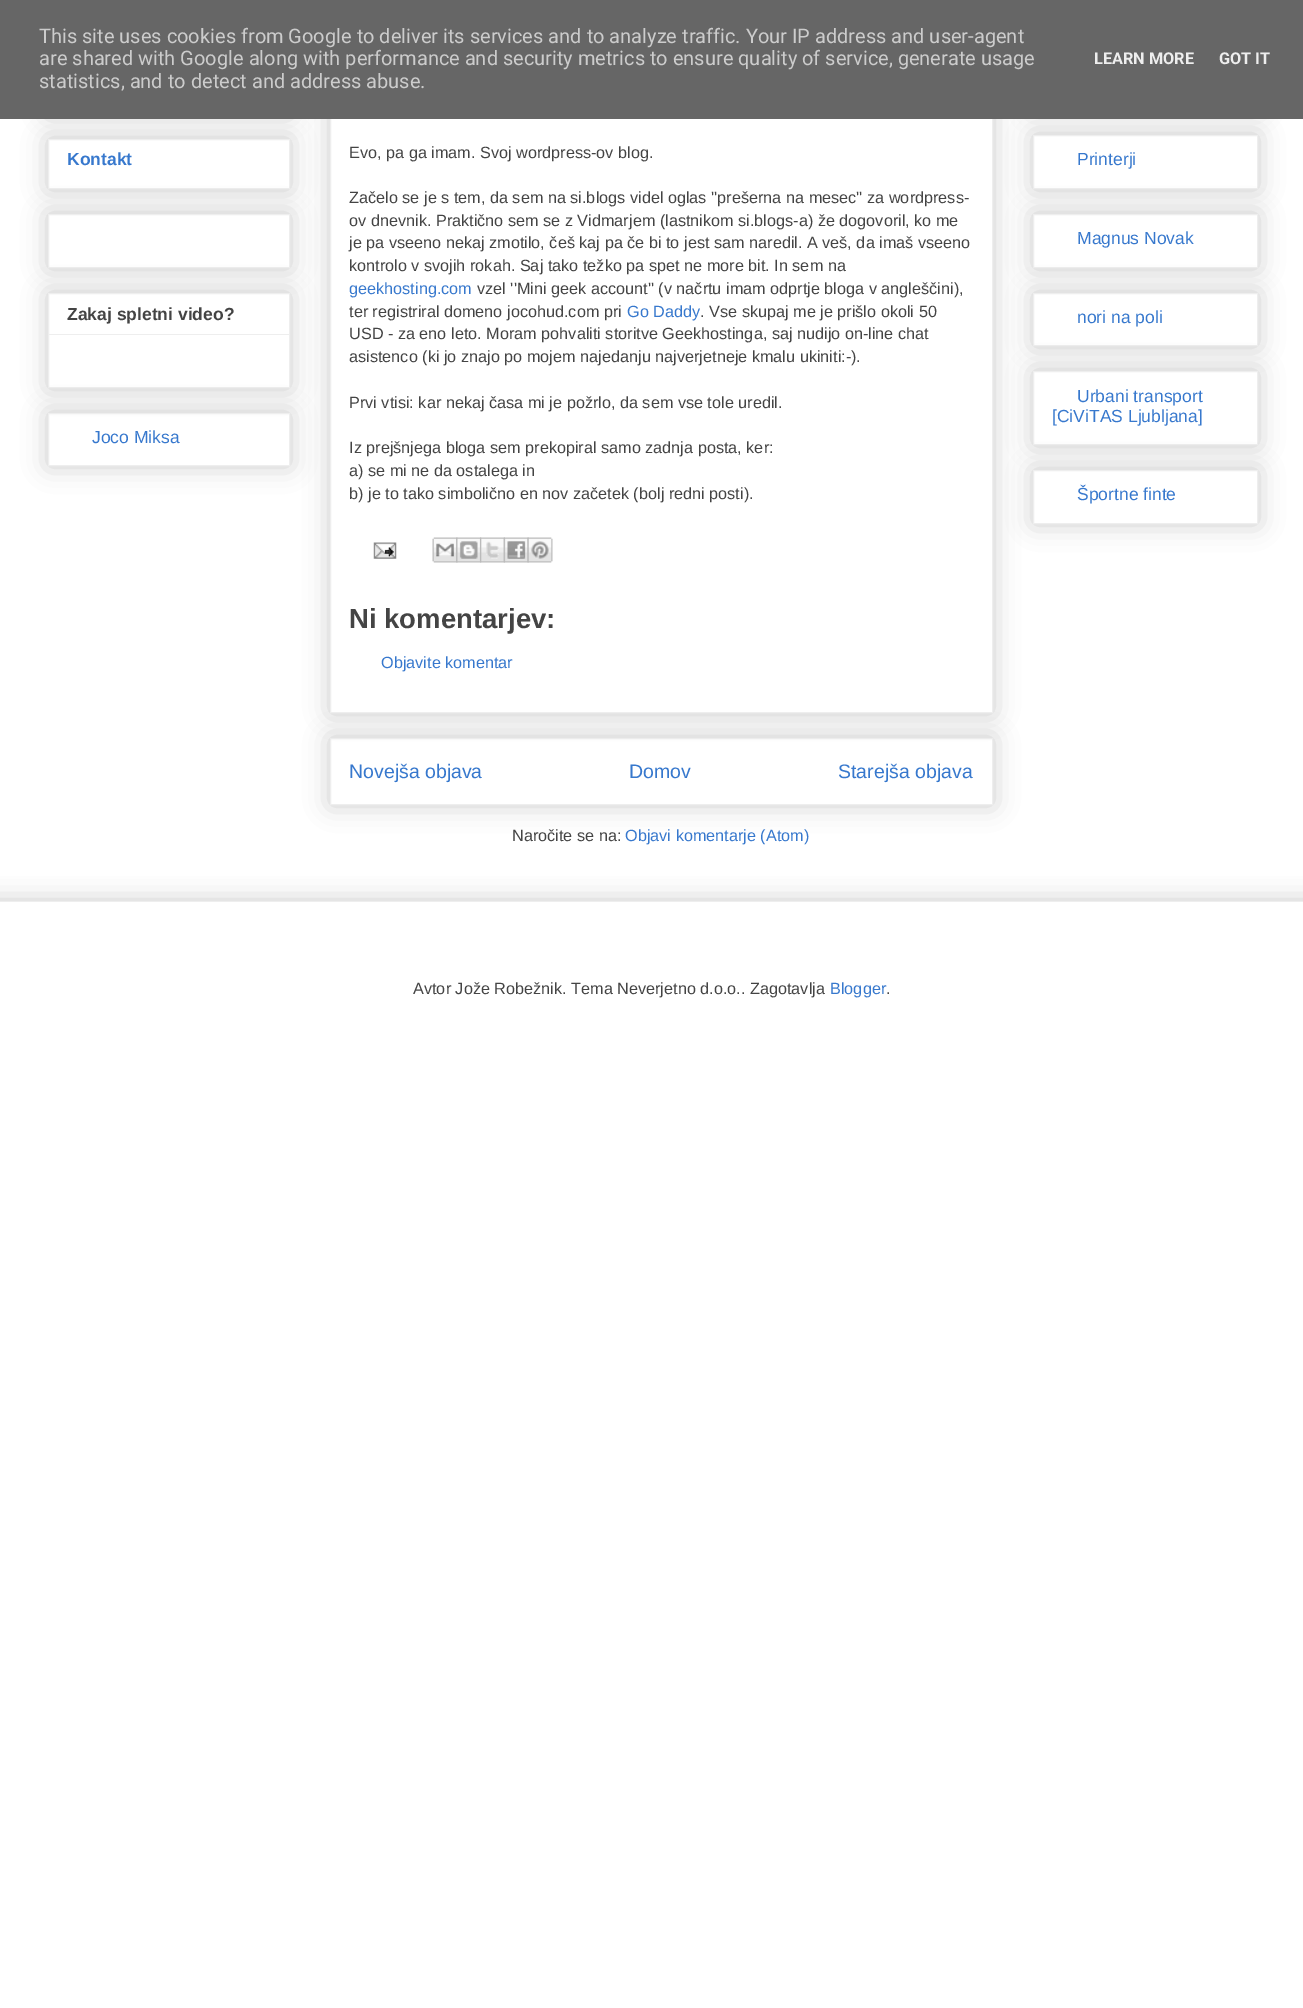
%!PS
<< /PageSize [1303 2008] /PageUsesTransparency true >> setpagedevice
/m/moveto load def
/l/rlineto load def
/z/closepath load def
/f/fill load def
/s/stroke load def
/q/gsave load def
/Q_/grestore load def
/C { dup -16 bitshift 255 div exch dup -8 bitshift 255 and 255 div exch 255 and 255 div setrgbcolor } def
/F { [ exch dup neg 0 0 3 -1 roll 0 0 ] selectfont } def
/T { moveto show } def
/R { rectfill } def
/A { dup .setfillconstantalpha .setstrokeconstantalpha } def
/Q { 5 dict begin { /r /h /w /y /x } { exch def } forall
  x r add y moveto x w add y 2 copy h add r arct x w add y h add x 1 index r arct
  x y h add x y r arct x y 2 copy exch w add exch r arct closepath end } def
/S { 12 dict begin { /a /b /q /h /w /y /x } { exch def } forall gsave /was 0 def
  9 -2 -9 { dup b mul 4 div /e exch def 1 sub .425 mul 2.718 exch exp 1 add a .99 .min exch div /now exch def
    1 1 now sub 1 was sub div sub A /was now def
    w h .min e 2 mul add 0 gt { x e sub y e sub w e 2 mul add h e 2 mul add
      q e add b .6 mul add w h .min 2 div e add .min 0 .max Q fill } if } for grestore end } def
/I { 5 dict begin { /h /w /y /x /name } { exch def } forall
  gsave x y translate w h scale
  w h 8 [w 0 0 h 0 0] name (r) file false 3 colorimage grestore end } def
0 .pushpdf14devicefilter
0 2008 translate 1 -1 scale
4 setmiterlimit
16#FFFFFF C
0 0 1303 2008 R
16#000000 C
48 40 242 74 0 12.5 .2 S
48 139 242 50 0 12.5 .2 S
330 738 663 67 0 12.5 .2 S
16#FFFFFF C
330.5 738.5 m 662 0 l 0 66 l -662 0 l z q f Q_
16#EEEEEE C
s
16#000000 C
330 40 663 673 0 12.5 .2 S
16#FFFFFF C
331 119 661 593 R
16#EEEEEE C
330.5 40.5 662 672 rectstroke
16#000000 C
1033 40 225 70 0 12.5 .2 S
1033 135 225 54 0 12.5 .2 S
16#666666 C
0 0 1303 119 R
/Roboto-Regular 20 F
16#CCCCCC C
(This site uses cookies from Google to deliver its services and to analyze traffic. Your IP address and user-agent) 39 43 T
(are shared with Google along with performance and security metrics to ensure quality of service, generate usage) 39 65 T
(statistics, and to detect and address abuse.) 39 88 T
/Roboto-Bold 16.25 F
16#EEEEEE C
(LEARN MORE) 1094 64 T
(GOT IT) 1219 64 T
16#FFFFFF C
48.5 139.5 m 241 0 l 0 49 l -241 0 l z q f Q_
16#EEEEEE C
s
/LiberationSans-Bold 17.5 F
16#3778CD C
(Kontakt) 67 165 T
16#000000 C
48 214 242 54 0 12.5 .2 S
16#FFFFFF C
48.5 214.5 m 241 0 l 0 53 l -241 0 l z q f Q_
16#EEEEEE C
s
16#000000 C
48 293 242 95 0 12.5 .2 S
16#FFFFFF C
48.5 293.5 m 241 0 l 0 94 l -241 0 l z q f Q_
16#EEEEEE C
s
16#444444 C
(Zakaj spletni video?) 67 320 T
16#EEEEEE C
49 334 240 1 R
q
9 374 m 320 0 l 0 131 l -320 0 l z 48 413 m 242 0 l 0 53 l -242 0 l z eoclip newpath
16#000000 C
48 413 242 53 0 12.5 .2 S
Q_
48.5 413.5 241 52 rectstroke
/LiberationSans-Regular 17.5 F
16#3778CD C
(Joco Miksa) 92 443 T
/LiberationSans-Regular 16.25 F
16#444444 C
(Evo, pa ga imam. Svoj wordpress-ov blog.) 349 158 T
(Začelo se je s tem, da sem na si.blogs videl oglas ''prešerna na mesec'' za wordpress-) 349 203 T
(ov dnevnik. Praktično sem se z Vidmarjem \(lastnikom si.blogs-a\) že dogovoril, ko me) 349 226 T
(je pa vseeno nekaj zmotilo, češ kaj pa če bi to jest sam naredil. A veš, da imaš vseeno) 349 248 T
(kontrolo v svojih rokah. Saj tako težko pa spet ne more bit. In sem na) 349 271 T
16#3778CD C
(geekhosting.com) 349 294 T
16#444444 C
(vzel ''Mini geek account'' \(v načrtu imam odprtje bloga v angleščini\),) 477 294 T
(ter registriral domeno jocohud.com pri) 349 317 T
16#3778CD C
(Go Daddy) 627 317 T
16#444444 C
(. Vse skupaj me je prišlo okoli 50) 700 317 T
(USD - za eno leto. Moram pohvaliti storitve Geekhostinga, saj nudijo on-line chat) 349 339 T
(asistenco \(ki jo znajo po mojem najedanju najverjetneje kmalu ukiniti:-\).) 349 362 T
(Prvi vtisi: kar nekaj časa mi je požrlo, da sem vse tole uredil.) 349 408 T
(Iz prejšnjega bloga sem prekopiral samo zadnja posta, ker:) 349 453 T
(a\) se mi ne da ostalega in) 349 476 T
(b\) je to tako simbolično en nov začetek \(bolj redni posti\).) 349 499 T
(1.rgb) 373 542 24 17 I
(2.rgb) 432 537 26 26 I
(3.rgb) 456 537 26 26 I
(4.rgb) 480 537 25 26 I
(5.rgb) 503 537 26 26 I
(6.rgb) 527 537 26 26 I
/LiberationSans-Bold 27.5 F
(Ni komentarjev:) 349 628 T
/LiberationSans-Regular 16.25 F
16#3778CD C
(Objavite komentar) 381 668 T
/LiberationSans-Regular 19.5 F
(Novejša objava) 349 778 T
(Domov) 629 778 T
(Starejša objava) 838 778 T
/LiberationSans-Regular 16.25 F
16#444444 C
(Naročite se na:) 512 841 T
16#3778CD C
(Objavi komentarje \(Atom\)) 625 841 T
16#FFFFFF C
1033.5 135.5 m 224 0 l 0 53 l -224 0 l z q f Q_
16#EEEEEE C
s
/LiberationSans-Regular 17.5 F
16#3778CD C
(Printerji) 1077 165 T
16#000000 C
1033 214 225 54 0 12.5 .2 S
16#FFFFFF C
1033.5 214.5 m 224 0 l 0 53 l -224 0 l z q f Q_
16#EEEEEE C
s
16#3778CD C
(Magnus Novak) 1077 244 T
16#000000 C
1033 293 225 53 0 12.5 .2 S
16#FFFFFF C
1033.5 293.5 m 224 0 l 0 52 l -224 0 l z q f Q_
16#EEEEEE C
s
16#3778CD C
(nori na poli) 1077 323 T
16#000000 C
1033 371 225 74 0 12.5 .2 S
16#FFFFFF C
1033.5 371.5 m 224 0 l 0 73 l -224 0 l z q f Q_
16#EEEEEE C
s
16#3778CD C
(Urbani transport) 1077 402 T
([CiViTAS Ljubljana]) 1052 422 T
16#000000 C
1033 470 225 54 0 12.5 .2 S
16#FFFFFF C
1033.5 470.5 m 224 0 l 0 53 l -224 0 l z q f Q_
16#EEEEEE C
s
16#3778CD C
(Športne finte) 1077 500 T
q
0 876 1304 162 rectclip
16#000000 C
-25 901 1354 137 0 12.5 .2 S
Q_
16#FFFFFF C
0 902 1303 136 R
16#EEEEEE C
0 901 1303 1 R
/LiberationSans-Regular 16.25 F
16#444444 C
(Avtor Jože Robežnik. Tema Neverjetno d.o.o.. Zagotavlja) 413 994 T
16#3778CD C
(Blogger) 830 994 T
16#444444 C
(.) 886 994 T
.poppdf14devicefilter showpage
